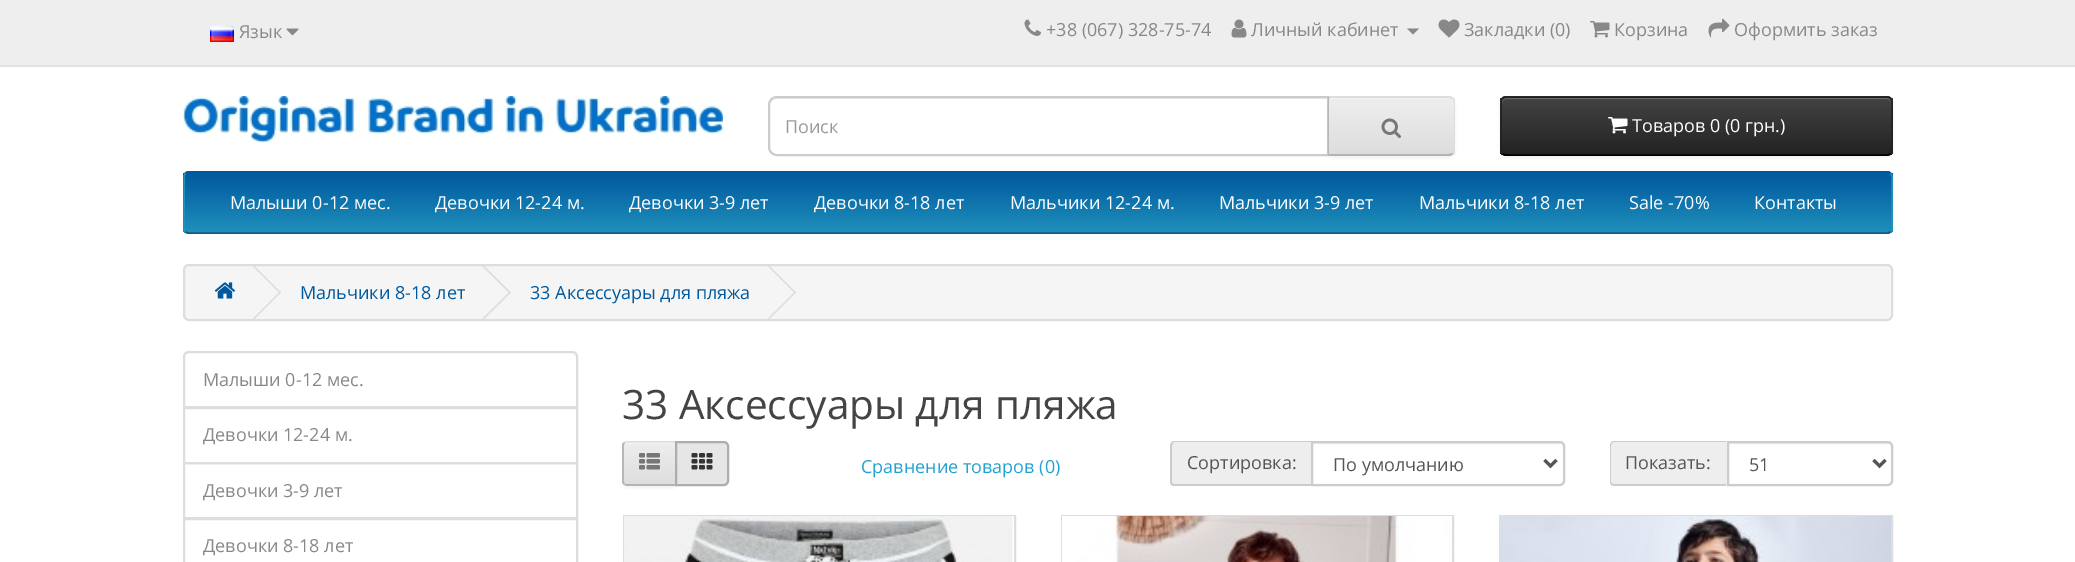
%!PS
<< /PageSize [2075 562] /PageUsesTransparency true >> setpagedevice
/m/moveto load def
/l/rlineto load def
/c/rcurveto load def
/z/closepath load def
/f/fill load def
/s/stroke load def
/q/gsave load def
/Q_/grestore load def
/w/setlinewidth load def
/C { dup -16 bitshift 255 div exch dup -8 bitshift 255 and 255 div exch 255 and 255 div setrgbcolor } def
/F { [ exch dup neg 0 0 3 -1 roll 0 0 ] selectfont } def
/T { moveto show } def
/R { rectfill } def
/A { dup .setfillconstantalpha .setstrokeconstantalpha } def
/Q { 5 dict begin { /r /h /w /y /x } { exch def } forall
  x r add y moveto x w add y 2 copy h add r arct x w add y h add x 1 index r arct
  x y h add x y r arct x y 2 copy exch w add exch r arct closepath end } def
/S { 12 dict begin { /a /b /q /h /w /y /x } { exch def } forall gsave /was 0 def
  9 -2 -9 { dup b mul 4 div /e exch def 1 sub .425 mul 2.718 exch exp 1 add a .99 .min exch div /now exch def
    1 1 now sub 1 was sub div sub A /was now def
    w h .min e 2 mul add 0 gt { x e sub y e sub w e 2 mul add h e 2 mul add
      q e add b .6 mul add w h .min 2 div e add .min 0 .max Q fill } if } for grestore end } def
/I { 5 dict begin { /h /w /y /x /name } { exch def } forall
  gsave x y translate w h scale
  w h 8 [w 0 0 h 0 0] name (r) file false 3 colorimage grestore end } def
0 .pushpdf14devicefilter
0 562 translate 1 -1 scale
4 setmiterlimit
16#FFFFFF C
0 0 2075 562 R
16#EEEEEE C
0 0 2075 65 R
16#E2E2E2 C
0 65 2075 2 R
(1.rgb) 210 25 24 17 I
/OpenSans-Regular 18 F
16#888888 C
(Язык) 239 38 T
(2.rgb) 286 28 13 8 I
(3.rgb) 1024 19 17 17 I
(+38 \(067\) 328-75-74) 1046 36 T
(4.rgb) 1231 19 16 19 I
(Личный кабинет) 1251 36 T
1407 28.5 m 12 0 l -6 6 l z f
(5.rgb) 1438 19 22 19 I
(Закладки \(0\)) 1464 36 T
(6.rgb) 1590 21 20 17 I
(Корзина) 1614 36 T
(7.rgb) 1708 18 22 20 I
(Оформить заказ) 1734 36 T
(8.rgb) 183 96 540 47 I
16#ECECEC C
777 99 m 551 0 l 0 -1 l -550 0 l -4 0 -8 4 -8 8 c 0 -4 3 -7 7 -7 c z f
16#CCCCCC C
2 w
777 97 m 551 0 l 0 58 l -551 0 l -4.5 0 -8 -3.5 -8 -8 c 0 -42 l 0 -4.5 3.5 -8 8 -8 c z s
16#999999 C
(Поиск) 785 133 T
16#000000 C
1328 98 127 60 6 1.5 .05 S
16#E7E7E7 C
1328 96 m 121 0 l 3.5 0 6 2.5 6 6 c 0 48 l 0 3.5 -2.5 6 -6 6 c -121 0 l z f
q
1328 96 m 121 0 l 3.5 0 6 2.5 6 6 c 0 48 l 0 3.5 -2.5 6 -6 6 c -121 0 l z clip newpath
q 1329 98 m 126 0 l 0 57 l -126 0 l z clip newpath
<< /ShadingType 2 /ColorSpace /DeviceRGB /Coords [1391 98 1391 155] /Extend [true true] /Function << /FunctionType 2 /Domain [0 1] /C0 [.933 .933 .933] /C1 [.867 .867 .867] /N 1 >> >> shfill Q_
Q_
16#F1F1F1 C
1329 99 m 120 0 l 2 0 5 2 5 5 c 0 -1 l 0 -3 -2 -5 -5 -5 c -120 0 l z f
16#DDDDDD C
1328 96 m 2 2 l 119 0 l 3 1 l 1 -1 l -1 -1 -3 -2 -4 -2 c z f
1455 150 m 0 -48 l 0 -2 -1 -3 -2 -4 c -1 1 l 1 1 2 2 2 3 c 0 48 l 0 1 -1 2 -2 3 c 1 1 l 1 -1 2 -2 2 -4 c z f
16#B3B3B3 C
1328 156 m 122 0 l 3 -2 l -1 -1 l -3 1 l -119 0 l z f
16#B7B7B7 C
1329 98 m 1 0 l -2 -2 l 0 60 l 2 -2 l -1 0 l z f
(9.rgb) 1381 118 20 20 I
16#000000 C
1500 98 393 60 6 1.5 .05 S
16#363636 C
1500 96 393 60 6 Q f
q
1500 96 393 60 6 Q clip newpath
q 1500 98 m 393 0 l 0 57 l -393 0 l z clip newpath
<< /ShadingType 2 /ColorSpace /DeviceRGB /Coords [1697 97 1697 155] /Extend [true true] /Function << /FunctionType 2 /Domain [0 1] /C0 [.267 .267 .267] /C1 [.133 .133 .133] /N 1 >> >> shfill Q_
Q_
16#696969 C
1506 99 m 381 0 l 2 0 5 2 5 5 c 0 -1 l 0 -3 -2 -5 -5 -5 c -380 0 l -3 0 -5 2 -5 5 c 0 1 l 0 -3 2 -5 4 -5 c z f
16#000000 C
1.5 w
1890.5 153.5 m -1 1 -2 1.5 -3.5 1.5 c -381 0 l -1.5 0 -2.5 -.5 -3.5 -1.5 c s
16#222222 C
1502.5 153.5 m -1 -1 -1.5 -2 -1.5 -3.5 c 0 -48 l 0 -1.5 .5 -2.5 1.5 -3.5 c 1 -1 2 -1.5 3.5 -1.5 c 381 0 l 1.5 0 2.5 .5 3.5 1.5 c 1 1 1.5 2 1.5 3.5 c 0 48 l 0 1.5 -.5 2.5 -1.5 3.5 c s
(10.rgb) 1608 117 20 17 I
16#FFFFFF C
(Товаров 0 \(0 грн.\)) 1632 132 T
16#00589D C
183 171 1710 63 6 Q f
q
183 171 1710 63 6 Q clip newpath
q 183 173 m 1710 0 l 0 60 l -1710 0 l z clip newpath
<< /ShadingType 2 /ColorSpace /DeviceRGB /Coords [1038 172 1038 233] /Extend [true true] /Function << /FunctionType 2 /Domain [0 1] /C0 [0 .345 .616] /C1 [.122 .565 .733] /N 1 >> >> shfill Q_
Q_
185.5 173.5 m 1 -1 2 -1.5 3.5 -1.5 c 1698 0 l 1.5 0 2.5 .5 3.5 1.5 c s
16#1F90BB C
1890.5 173.5 m 1 1 1.5 2 1.5 3.5 c 0 51 l 0 1.5 -.5 2.5 -1.5 3.5 c s
16#145E7A C
1890.5 231.5 m -1 1 -2 1.5 -3.5 1.5 c -1698 0 l -1.5 0 -2.5 -.5 -3.5 -1.5 c s
16#1F90BB C
185.5 231.5 m -1 -1 -1.5 -2 -1.5 -3.5 c 0 -51 l 0 -1.5 .5 -2.5 1.5 -3.5 c s
16#FFFFFF C
(Малыши 0-12 мес.) 230 209 T
(Девочки 12-24 м.) 435 209 T
(Девочки 3-9 лет) 629 209 T
(Девочки 8-18 лет) 814 209 T
(Мальчики 12-24 м.) 1010 209 T
(Мальчики 3-9 лет) 1219 209 T
(Мальчики 8-18 лет) 1419 209 T
(Sale -70%) 1629 209 T
(Контакты) 1754 209 T
16#F5F5F5 C
184 265 1708 55 5 Q q f Q_
16#DDDDDD C
2 w
s
(11.rgb) 214 282 21 17 I
252.5 266 m 1 -1 l 27.5 27.5 l -1 1 l z f
252.5 319 m 27.5 -27.5 l 1 1 l -27.5 27.5 l z f
16#00589D C
(Мальчики 8-18 лет) 300 299 T
16#DDDDDD C
482 266 m 1 -1 l 28 27.5 l -1 1 l z f
482 319 m 28 -27.5 l 1 1 l -28 27.5 l z f
16#00589D C
(33 Аксессуары для пляжа) 530 299 T
16#DDDDDD C
767.5 266 m 1 -1 l 27.5 27.5 l -1 1 l z f
767.5 319 m 27.5 -27.5 l 1 1 l -27.5 27.5 l z f
189 352 m 383 0 l 3 0 5 2 5 5 c 0 50 l -393 0 l 0 -50 l 0 -3 2 -5 5 -5 c z s
16#888888 C
(Малыши 0-12 мес.) 203 386 T
16#DDDDDD C
184 408 393 55 rectstroke
16#888888 C
(Девочки 12-24 м.) 203 441 T
16#DDDDDD C
184 463 393 55 rectstroke
16#888888 C
(Девочки 3-9 лет) 203 497 T
16#DDDDDD C
184 519 393 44 rectstroke
16#888888 C
(Девочки 8-18 лет) 203 552 T
/OpenSans-Regular 40.5 F
16#444444 C
(33 Аксессуары для пляжа) 622 419 T
16#000000 C
623 443 54 45 5 1.5 .05 S
16#E7E7E7 C
628 441 m 49 0 l 0 45 l -49 0 l -3 0 -5 -2 -5 -5 c 0 -35 l 0 -3 2 -5 5 -5 c z f
q 623 443 m 52 0 l 0 42 l -52 0 l z clip newpath
<< /ShadingType 2 /ColorSpace /DeviceRGB /Coords [650 443 650 485] /Extend [true true] /Function << /FunctionType 2 /Domain [0 1] /C0 [.933 .933 .933] /C1 [.867 .867 .867] /N 1 >> >> shfill Q_
16#F1F1F1 C
627 444 m 48 0 l 0 -1 l -48 0 l -2 0 -3 1 -3 3 c 0 1 l 0 -2 1 -3 3 -3 c z f
16#DDDDDD C
627 441 m -3 1 l 1 1 l 1 -1 l 49 0 l 1 -1 l z f
16#B3B3B3 C
627 486 m 49 0 l -2 -2 l -47 0 l -2 0 l -1 1 l z f
16#B7B7B7 C
622 444 m 2 -2 l 1 1 l -2 2 -1 7 -1 9 c 0 30 l 1 2 l -1 1 l -2 -2 l z f
(12.rgb) 639 453 21 17 I
16#E6E6E6 C
676 442 m 48 0 l 2 0 4 2 4 4 c 0 35 l 0 2 -2 4 -4 4 c -48 0 l z q f Q_
16#ADADAD C
s
(13.rgb) 691 453 22 17 I
/OpenSans-Regular 18 F
16#23A1D1 C
(Сравнение товаров \(0\)) 861 473 T
16#EEEEEE C
1175 441 m 136 0 l 0 45 l -136 0 l -3 0 -5 -2 -5 -5 c 0 -35 l 0 -3 2 -5 5 -5 c z f
16#CCCCCC C
1174 441 m 137 0 l 0 45 l -137 0 l -2 0 -4 -2 -4 -4 c 0 -36 l 0 -3 2 -5 4 -5 c z 1174 442 m 137 0 l 0 42 l -137 0 l -1 0 -2 -1 -2 -2 c 0 -36 l 0 -2 1 -4 2 -4 c z eofill
16#555555 C
(Сортировка:) 1187 469 T
16#ECECEC C
1313 443 m 0 1 l 248 0 l 2 1 l 0 2 l 0 -2 -1 -4 -3 -4 c z f
16#CCCCCC C
1312 442 m 248 0 l 2 0 4 2 4 4 c 0 35 l 0 2 -2 4 -4 4 c -248 0 l z s
16#555555 C
3 w
1544.5 460 m 6 6 l 6 -6 l s
(По умолчанию) 1333 471 T
16#EEEEEE C
1615 441 m 112 0 l 0 45 l -112 0 l -3 0 -5 -2 -5 -5 c 0 -35 l 0 -3 2 -5 5 -5 c z f
16#CCCCCC C
1614 441 m 112 0 l 0 45 l -112 0 l -2 0 -4 -2 -4 -4 c 0 -36 l 0 -3 2 -5 4 -5 c z 1614 442 m 112 0 l 0 42 l -112 0 l -2 0 -3 -1 -3 -2 c 0 -36 l 0 -2 1 -4 3 -4 c z eofill
16#555555 C
(Показать:) 1625 469 T
16#ECECEC C
1728 444 m 160 0 l 2 0 4 1 4 3 c 0 -2 -1 -4 -3 -4 c -161 0 l z f
16#CCCCCC C
2 w
1728 442 m 160 0 l 2 0 4 2 4 4 c 0 35 l 0 2 -2 4 -4 4 c -160 0 l z s
16#555555 C
3 w
1873.5 460 m 6 6 l 6 -6 l s
(51) 1749 471 T
16#DDDDDD C
2 w
624 516 391 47 rectstroke
(14.rgb) 624 516 390 46 I
1062 516 391 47 rectstroke
(15.rgb) 1062 516 390 46 I
1500 516 392 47 rectstroke
(16.rgb) 1500 516 391 46 I
.poppdf14devicefilter showpage
